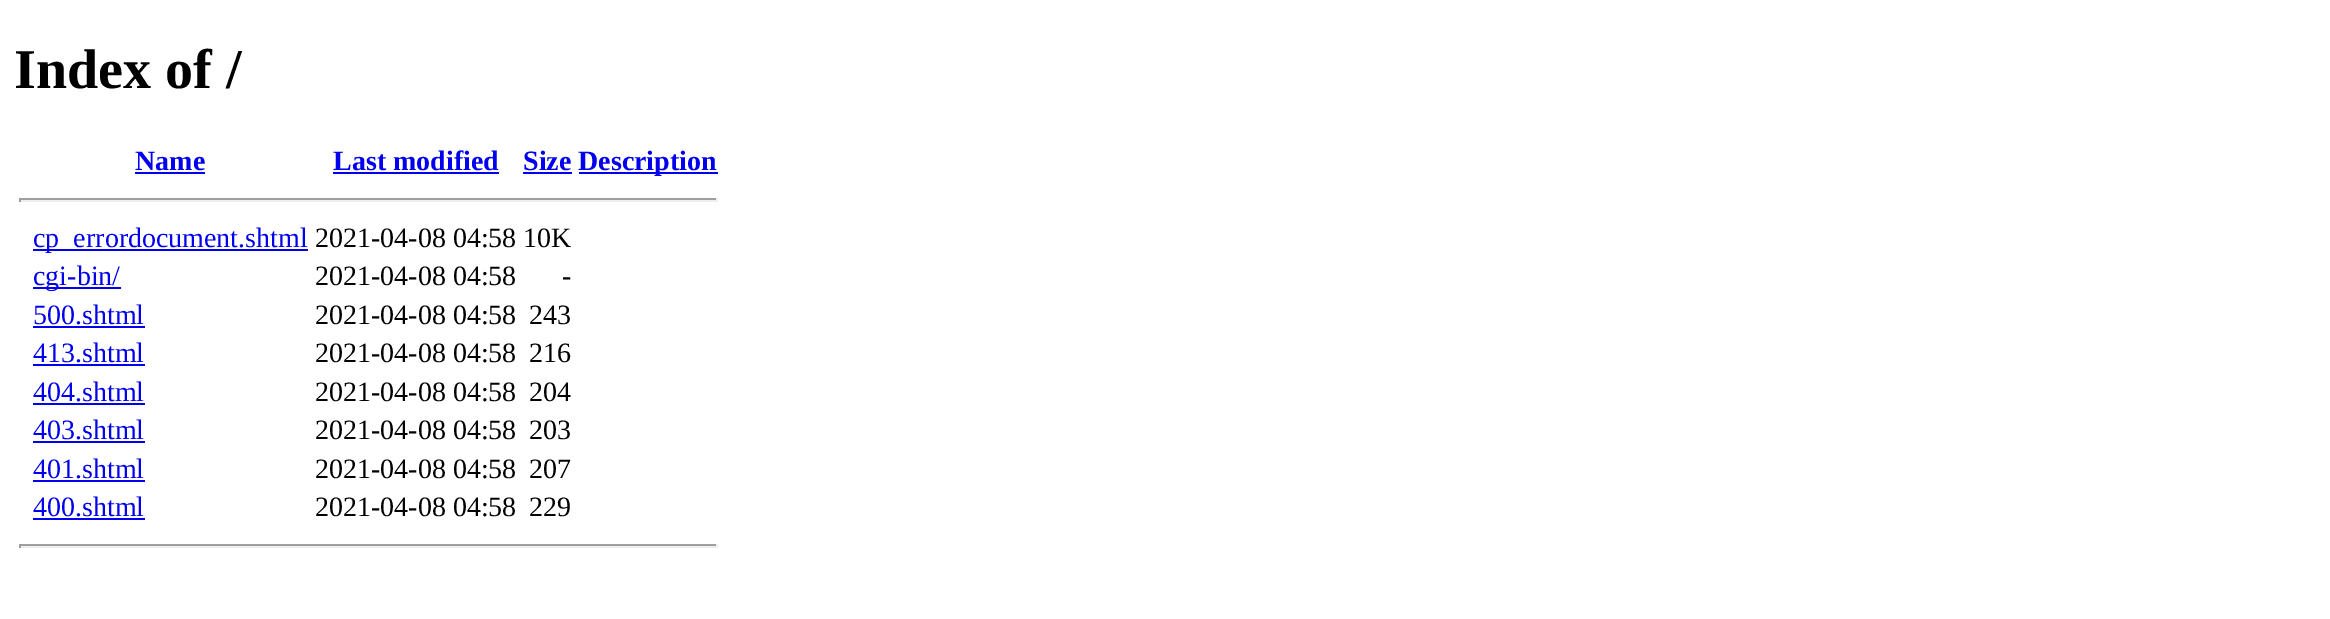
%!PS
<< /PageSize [2330 619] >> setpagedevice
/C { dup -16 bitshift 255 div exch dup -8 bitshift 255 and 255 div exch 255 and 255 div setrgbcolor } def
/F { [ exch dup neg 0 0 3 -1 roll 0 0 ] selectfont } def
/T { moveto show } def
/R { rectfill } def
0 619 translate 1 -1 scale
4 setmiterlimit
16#FFFFFF C
0 0 2330 619 R
/LiberationSerif-Bold 56 F
16#000000 C
(Index of /) 14 88 T
/LiberationSerif-Bold 28 F
16#0000EE C
(Name) 135 170 T
135 172 70 2 R
(Last modified) 333 170 T
333 172 166 2 R
(Size) 523 170 T
523 172 49 2 R
579 172 139 2 R
(Description) 578 170 T
16#9F9F9F C
19 198 699 2 R
16#EEEEEE C
716 198 2 4 R
19 200 699 2 R
16#9F9F9F C
19 198 2 4 R
16#0000EE C
33 249 275 2 R
/LiberationSerif-Regular 28 F
(cp_errordocument.shtml) 33 247 T
16#000000 C
(2021-04-08 04:58 10K) 315 247 T
16#0000EE C
33 287 88 2 R
(cgi-bin/) 33 285 T
16#000000 C
(2021-04-08 04:58) 315 285 T
(-) 562 285 T
16#0000EE C
(500.shtml) 33 324 T
33 326 112 2 R
16#000000 C
(2021-04-08 04:58) 315 324 T
(243) 529 324 T
16#0000EE C
(413.shtml) 33 362 T
33 364 112 2 R
16#000000 C
(2021-04-08 04:58) 315 362 T
(216) 529 362 T
16#0000EE C
(404.shtml) 33 401 T
33 403 112 2 R
16#000000 C
(2021-04-08 04:58) 315 401 T
(204) 529 401 T
16#0000EE C
(403.shtml) 33 439 T
33 441 112 2 R
16#000000 C
(2021-04-08 04:58) 315 439 T
(203) 529 439 T
16#0000EE C
(401.shtml) 33 478 T
33 480 112 2 R
16#000000 C
(2021-04-08 04:58) 315 478 T
(207) 529 478 T
16#0000EE C
(400.shtml) 33 516 T
33 518 112 2 R
16#000000 C
(2021-04-08 04:58) 315 516 T
(229) 529 516 T
16#9F9F9F C
19 544 699 2 R
16#EEEEEE C
716 544 2 4 R
19 546 699 2 R
16#9F9F9F C
19 544 2 4 R
showpage
